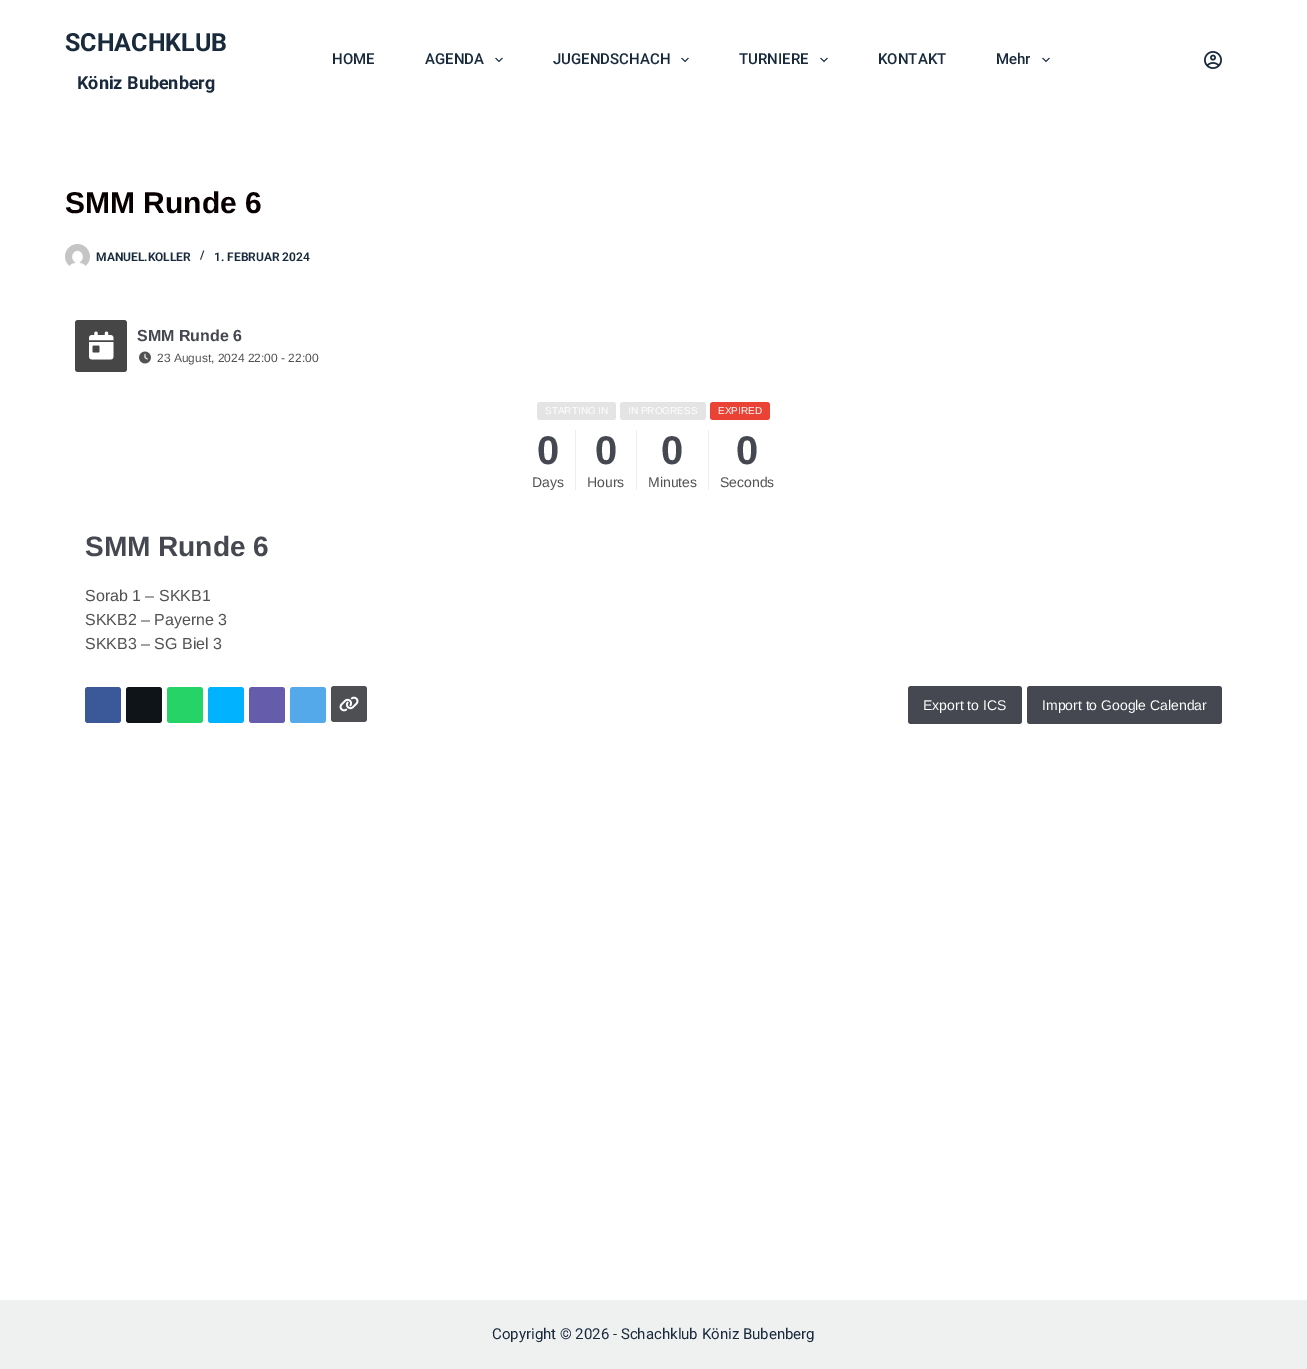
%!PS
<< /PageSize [1307 1369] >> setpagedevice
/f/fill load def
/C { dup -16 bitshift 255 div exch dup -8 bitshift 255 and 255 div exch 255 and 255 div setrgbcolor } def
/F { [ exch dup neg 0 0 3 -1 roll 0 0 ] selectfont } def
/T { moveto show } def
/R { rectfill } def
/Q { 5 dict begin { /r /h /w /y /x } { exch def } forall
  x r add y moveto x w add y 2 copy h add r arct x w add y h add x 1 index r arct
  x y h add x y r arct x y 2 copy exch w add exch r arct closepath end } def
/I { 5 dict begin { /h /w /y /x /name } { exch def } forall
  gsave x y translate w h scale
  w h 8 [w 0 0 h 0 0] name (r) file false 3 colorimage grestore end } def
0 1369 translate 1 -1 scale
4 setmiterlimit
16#FFFFFF C
0 0 1307 1369 R
/Roboto-Bold 25 F
16#192A3D C
(SCHACHKLUB) 65 51 T
/Roboto-Bold 18 F
(Köniz Bubenberg) 77 89 T
/Roboto-Medium 15 F
(HOME) 332 64 T
(AGENDA) 425 64 T
(1.rgb) 495 57 8 6 I
(JUGENDSCHACH) 553 64 T
(1.rgb) 681 57 8 6 I
(TURNIERE) 739 64 T
(1.rgb) 820 57 8 6 I
(KONTAKT) 878 64 T
(Mehr) 996 64 T
(1.rgb) 1042 57 8 6 I
(2.rgb) 1204 51 18 18 I
/LiberationSans-Bold 30 F
16#080000 C
(SMM Runde 6) 65 213 T
(3.rgb) 65 244 25 22 I
/Roboto-SemiBold 12 F
16#192A3D C
(MANUEL.KOLLER) 96 261 T
(/) 200 259 T
(1. FEBRUAR 2024) 214 261 T
16#464646 C
75 320 52 52 3 Q f
(4.rgb) 89 331 25 29 I
/LiberationSans-Bold 16 F
16#454850 C
(SMM Runde 6) 137 341 T
(5.rgb) 139 351 12 13 I
/LiberationSans-Regular 12 F
16#525252 C
(23 August, 2024 22:00 - 22:00) 157 362 T
16#E4E4E4 C
537 402 79 18 3 Q f
/LiberationSans-Regular 10 F
16#FFFFFF C
(STARTING IN) 545 414 T
16#E4E4E4 C
620 402 86 18 3 Q f
16#FFFFFF C
(IN PROGRESS) 628 414 T
16#EA4335 C
710 402 60 18 3 Q f
16#FFFFFF C
(EXPIRED) 718 414 T
16#EDEDED C
575 430 1 60 R
/LiberationSans-Bold 40 F
16#454850 C
(0) 537 464 T
/LiberationSans-Regular 14 F
16#525252 C
(Days) 532 487 T
16#EDEDED C
636 430 1 60 R
/LiberationSans-Bold 40 F
16#454850 C
(0) 595 464 T
/LiberationSans-Regular 14 F
16#525252 C
(Hours) 587 487 T
16#EDEDED C
708 430 1 60 R
/LiberationSans-Bold 40 F
16#454850 C
(0) 661 464 T
/LiberationSans-Regular 14 F
16#525252 C
(Minutes) 648 487 T
/LiberationSans-Bold 40 F
16#454850 C
(0) 736 464 T
/LiberationSans-Regular 14 F
16#525252 C
(Seconds) 720 487 T
/LiberationSans-Bold 28 F
16#454850 C
(SMM Runde 6) 85 556 T
/LiberationSans-Regular 16 F
16#525252 C
(Sorab 1 – SKKB1) 85 601 T
(SKKB2 – Payerne 3) 85 625 T
(SKKB3 – SG Biel 3) 85 649 T
16#3B5998 C
85 687 36 36 3 Q f
16#0F1419 C
126 687 36 36 3 Q f
16#25D366 C
167 687 36 36 3 Q f
16#00B2FF C
208 687 36 36 3 Q f
16#665CAC C
249 687 36 36 3 Q f
16#54A9EB C
290 687 36 36 3 Q f
16#4D4F53 C
331 686 36 36 3 Q f
(6.rgb) 339 696 20 16 I
16#454850 C
908 686 114 38 3 Q f
/LiberationSans-Regular 14 F
16#FFFFFF C
(Export to ICS) 923 710 T
16#454850 C
1027 686 195 38 3 Q f
16#FFFFFF C
(Import to Google Calendar) 1042 710 T
16#EFF1F1 C
0 1300 1307 69 R
/Roboto-Regular 15 F
16#192A3D C
(Copyright © 2026 - Schachklub Köniz Bubenberg) 492 1339 T
showpage
